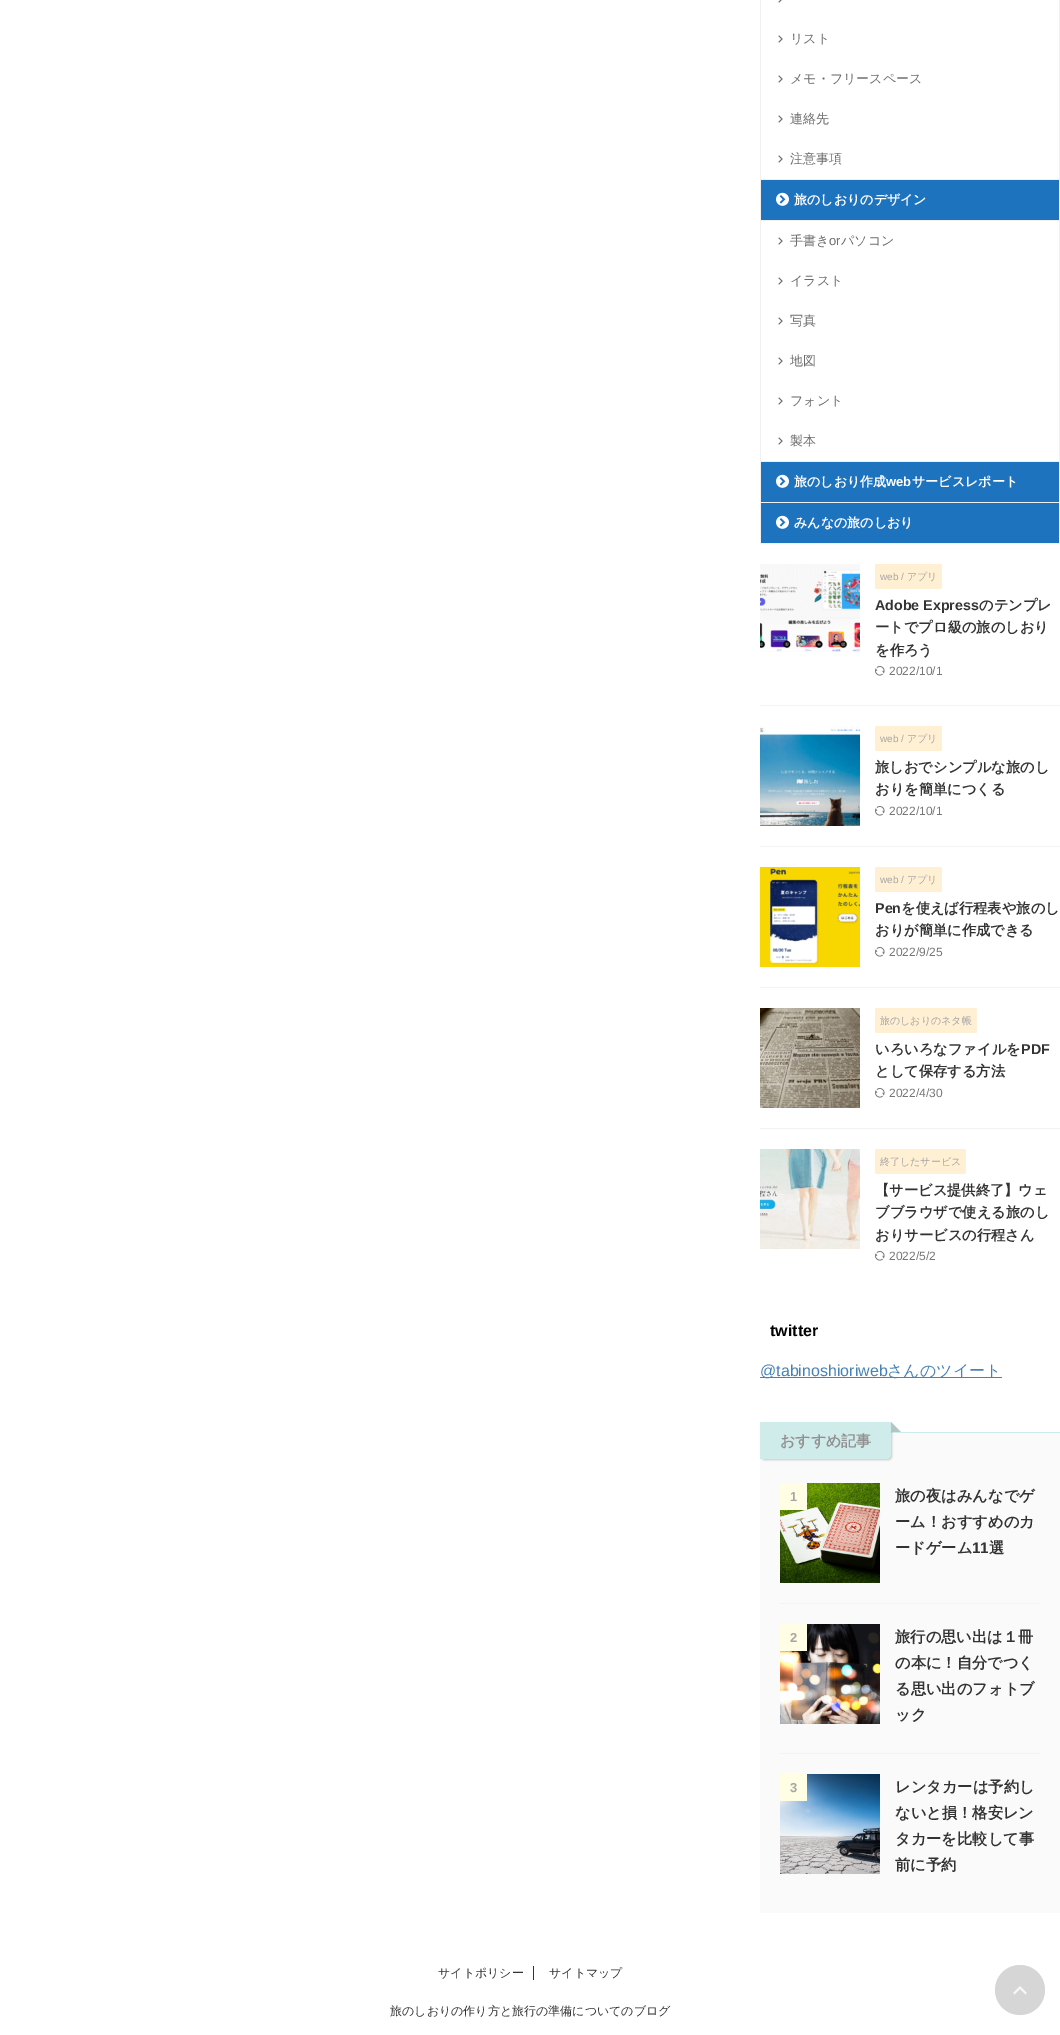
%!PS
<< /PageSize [1060 2035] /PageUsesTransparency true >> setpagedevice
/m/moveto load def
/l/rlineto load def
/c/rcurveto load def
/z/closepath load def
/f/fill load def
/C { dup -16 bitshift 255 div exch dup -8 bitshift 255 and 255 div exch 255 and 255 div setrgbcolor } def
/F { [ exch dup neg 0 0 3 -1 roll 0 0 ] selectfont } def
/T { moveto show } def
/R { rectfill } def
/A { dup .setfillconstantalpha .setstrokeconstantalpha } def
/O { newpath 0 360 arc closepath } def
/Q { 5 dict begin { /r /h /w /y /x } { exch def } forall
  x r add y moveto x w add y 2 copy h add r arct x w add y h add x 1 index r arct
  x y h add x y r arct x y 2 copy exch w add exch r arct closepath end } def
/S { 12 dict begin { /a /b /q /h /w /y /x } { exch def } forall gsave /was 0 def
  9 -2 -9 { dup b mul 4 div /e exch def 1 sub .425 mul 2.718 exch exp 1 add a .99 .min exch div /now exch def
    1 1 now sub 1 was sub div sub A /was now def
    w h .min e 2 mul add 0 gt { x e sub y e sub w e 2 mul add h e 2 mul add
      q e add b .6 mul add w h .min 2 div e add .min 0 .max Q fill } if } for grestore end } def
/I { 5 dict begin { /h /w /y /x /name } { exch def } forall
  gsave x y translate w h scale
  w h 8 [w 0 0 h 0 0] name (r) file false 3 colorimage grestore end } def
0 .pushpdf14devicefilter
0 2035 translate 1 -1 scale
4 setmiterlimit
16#FFFFFF C
0 0 1060 2035 R
16#F0F0F0 C
1059 0 1 179 R
760 0 1 179 R
(1.rgb) 778 0 4 3 I
(2.rgb) 778 35 5 8 I
/WenQuanYiZenHei-Medium 13 F
16#6B6B6B C
(リスト) 790 43 T
(2.rgb) 778 75 5 8 I
(メモ・フリースペース) 790 83 T
(2.rgb) 778 115 5 8 I
(連絡先) 790 123 T
(2.rgb) 778 155 5 8 I
(注意事項) 790 163 T
16#F0F0F0 C
760 179 300 1 R
1059 179 1 282 R
760 179 1 282 R
16#1E73BE C
761 180 298 40 R
(3.rgb) 776 192 13 14 I
/WenQuanYiZenHei-Bold 13 F
16#FFFFFF C
(旅のしおりのデザイン) 794 204 T
16#F0F0F0 C
761 220 298 1 R
(2.rgb) 778 237 5 8 I
/WenQuanYiZenHei-Medium 13 F
16#6B6B6B C
(手書き) 790 245 T
/LiberationSans-Regular 13 F
(or) 829 245 T
/WenQuanYiZenHei-Medium 13 F
(パソコン) 841 245 T
(2.rgb) 778 277 5 8 I
(イラスト) 790 285 T
(2.rgb) 778 317 5 8 I
(写真) 790 325 T
(2.rgb) 778 357 5 8 I
(地図) 790 365 T
(2.rgb) 778 397 5 8 I
(フォント) 790 405 T
(2.rgb) 778 437 5 8 I
(製本) 790 445 T
16#F0F0F0 C
760 461 300 1 R
1059 461 1 41 R
760 461 1 41 R
16#1E73BE C
761 462 298 40 R
(3.rgb) 776 474 13 14 I
/WenQuanYiZenHei-Bold 13 F
16#FFFFFF C
(旅のしおり作成) 794 486 T
/LiberationSans-Bold 13 F
(web) 886 486 T
/WenQuanYiZenHei-Bold 13 F
(サービスレポート) 912 486 T
16#F0F0F0 C
760.5 502.5 299 41 rectstroke
16#1E73BE C
761 503 298 40 R
(3.rgb) 776 515 13 14 I
16#FFFFFF C
(みんなの旅のしおり) 794 527 T
16#F3F3F3 C
760 705 300 1 R
(4.rgb) 760 564 100 88 I
16#FFEFD3 C
875 564 67 25 2 Q f
/LiberationSans-Regular 10 F
16#A5A5A5 C
(web /) 880 580 T
/WenQuanYiZenHei-Medium 10 F
(アプリ) 907 580 T
/LiberationSans-Bold 14.25 F
16#333333 C
(Adobe Express) 875 610 T
/WenQuanYiZenHei-Bold 14.25 F
(のテンプレ) 979 610 T
(ートでプロ級の旅のしおり) 875 632 T
(を作ろう) 875 655 T
(5.rgb) 875 666 10 10 I
/LiberationSans-Regular 12 F
16#777777 C
(2022/10/1) 889 675 T
16#F3F3F3 C
760 846 300 1 R
(6.rgb) 760 726 100 100 I
16#FFEFD3 C
875 726 67 25 2 Q f
/LiberationSans-Regular 10 F
16#A5A5A5 C
(web /) 880 742 T
/WenQuanYiZenHei-Medium 10 F
(アプリ) 907 742 T
/WenQuanYiZenHei-Bold 14.25 F
16#333333 C
(旅しおでシンプルな旅のし) 875 772 T
(おりを簡単につくる) 875 794 T
(5.rgb) 875 806 10 10 I
/LiberationSans-Regular 12 F
16#777777 C
(2022/10/1) 889 815 T
16#F3F3F3 C
760 987 300 1 R
(7.rgb) 760 867 100 100 I
16#FFEFD3 C
875 867 67 25 2 Q f
/LiberationSans-Regular 10 F
16#A5A5A5 C
(web /) 880 883 T
/WenQuanYiZenHei-Medium 10 F
(アプリ) 907 883 T
/LiberationSans-Bold 14.25 F
16#333333 C
(Pen) 875 913 T
/WenQuanYiZenHei-Bold 14.25 F
(を使えば行程表や旅のし) 901 913 T
(おりが簡単に作成できる) 875 935 T
(5.rgb) 875 947 10 10 I
/LiberationSans-Regular 12 F
16#777777 C
(2022/9/25) 889 956 T
16#F3F3F3 C
760 1128 300 1 R
(8.rgb) 760 1008 100 100 I
16#FFEFD3 C
875 1008 102 25 2 Q f
/WenQuanYiZenHei-Medium 10 F
16#A5A5A5 C
(旅のしおりのネタ帳) 880 1024 T
/WenQuanYiZenHei-Bold 14.25 F
16#333333 C
(いろいろなファイルを) 875 1054 T
/LiberationSans-Bold 14.25 F
(PDF) 1021 1054 T
/WenQuanYiZenHei-Bold 14.25 F
(として保存する方法) 875 1076 T
(5.rgb) 875 1088 10 10 I
/LiberationSans-Regular 12 F
16#777777 C
(2022/4/30) 889 1097 T
(9.rgb) 760 1149 100 100 I
16#FFEFD3 C
875 1149 91 25 2 Q f
/WenQuanYiZenHei-Medium 10 F
16#A5A5A5 C
(終了したサービス) 880 1165 T
/WenQuanYiZenHei-Bold 14.25 F
16#333333 C
(【サービス提供終了】ウェ) 875 1195 T
(ブブラウザで使える旅のし) 875 1217 T
(おりサービスの行程さん) 875 1240 T
(5.rgb) 875 1251 10 10 I
/LiberationSans-Regular 12 F
16#777777 C
(2022/5/2) 889 1260 T
/LiberationSans-Bold 16 F
16#000000 C
(twitter) 770 1336 T
16#4682B4 C
760 1377 242 1 R
/LiberationSans-Regular 16 F
(@tabinoshioriweb) 760 1376 T
/WenQuanYiZenHei-Medium 16 F
(さんのツイート) 887 1376 T
16#FAFAFA C
760 1433 300 480 R
16#D0ECEA C
891 1432 169 1 R
16#000000 C
761 1423 131 37 4 1 .2 S
16#D0ECEA C
760 1422 m 131 0 l 0 33 l 0 2 -2 4 -4 4 c -127 0 l z f
901 1432 m -10 0 l 5 -5 l z f
891 1432 m 0 -10 l 5 5 l z f
0.2 A
16#333333 C
901 1432 m -10 0 l 5 -5 l z f
891 1432 m 0 -10 l 5 5 l z f
/WenQuanYiZenHei-Bold 15 F
1 A
16#919191 C
(おすすめ記事) 780 1446 T
16#F3F3F3 C
780 1603 260 1 R
(10.rgb) 780 1483 100 100 I
16#FFFEE4 C
780 1483 27 27 R
/LiberationSans-Bold 13 F
16#A5A5A5 C
(1) 790 1501 T
/WenQuanYiZenHei-Bold 15.25 F
16#333333 C
(旅の夜はみんなでゲ) 895 1501 T
(ーム！おすすめのカ) 895 1527 T
(ードゲーム) 895 1553 T
/LiberationSans-Bold 15.25 F
(11) 972 1553 T
/WenQuanYiZenHei-Bold 15.25 F
(選) 989 1553 T
16#F3F3F3 C
780 1753 260 1 R
(11.rgb) 780 1624 100 100 I
16#FFFEE4 C
780 1624 27 27 R
/LiberationSans-Bold 13 F
16#A5A5A5 C
(2) 790 1642 T
/WenQuanYiZenHei-Bold 15.25 F
16#333333 C
(旅行の思い出は１冊) 895 1642 T
(の本に！自分でつく) 895 1668 T
(る思い出のフォトブ) 895 1694 T
(ック) 895 1720 T
(12.rgb) 780 1774 100 100 I
16#FFFEE4 C
780 1774 27 27 R
/LiberationSans-Bold 13 F
16#A5A5A5 C
(3) 790 1792 T
/WenQuanYiZenHei-Bold 15.25 F
16#333333 C
(レンタカーは予約し) 895 1792 T
(ないと損！格安レン) 895 1818 T
(タカーを比較して事) 895 1844 T
(前に予約) 895 1870 T
/WenQuanYiZenHei-Medium 12 F
(サイトポリシー) 438 1977 T
533 1966 1 14 R
(サイトマップ) 549 1977 T
(旅のしおりの作り方と旅行の準備についてのブログ) 390 2015 T
16#D6D6D6 C
1020 1990 25 O f
(13.rgb) 1013 1986 14 9 I
.poppdf14devicefilter showpage
